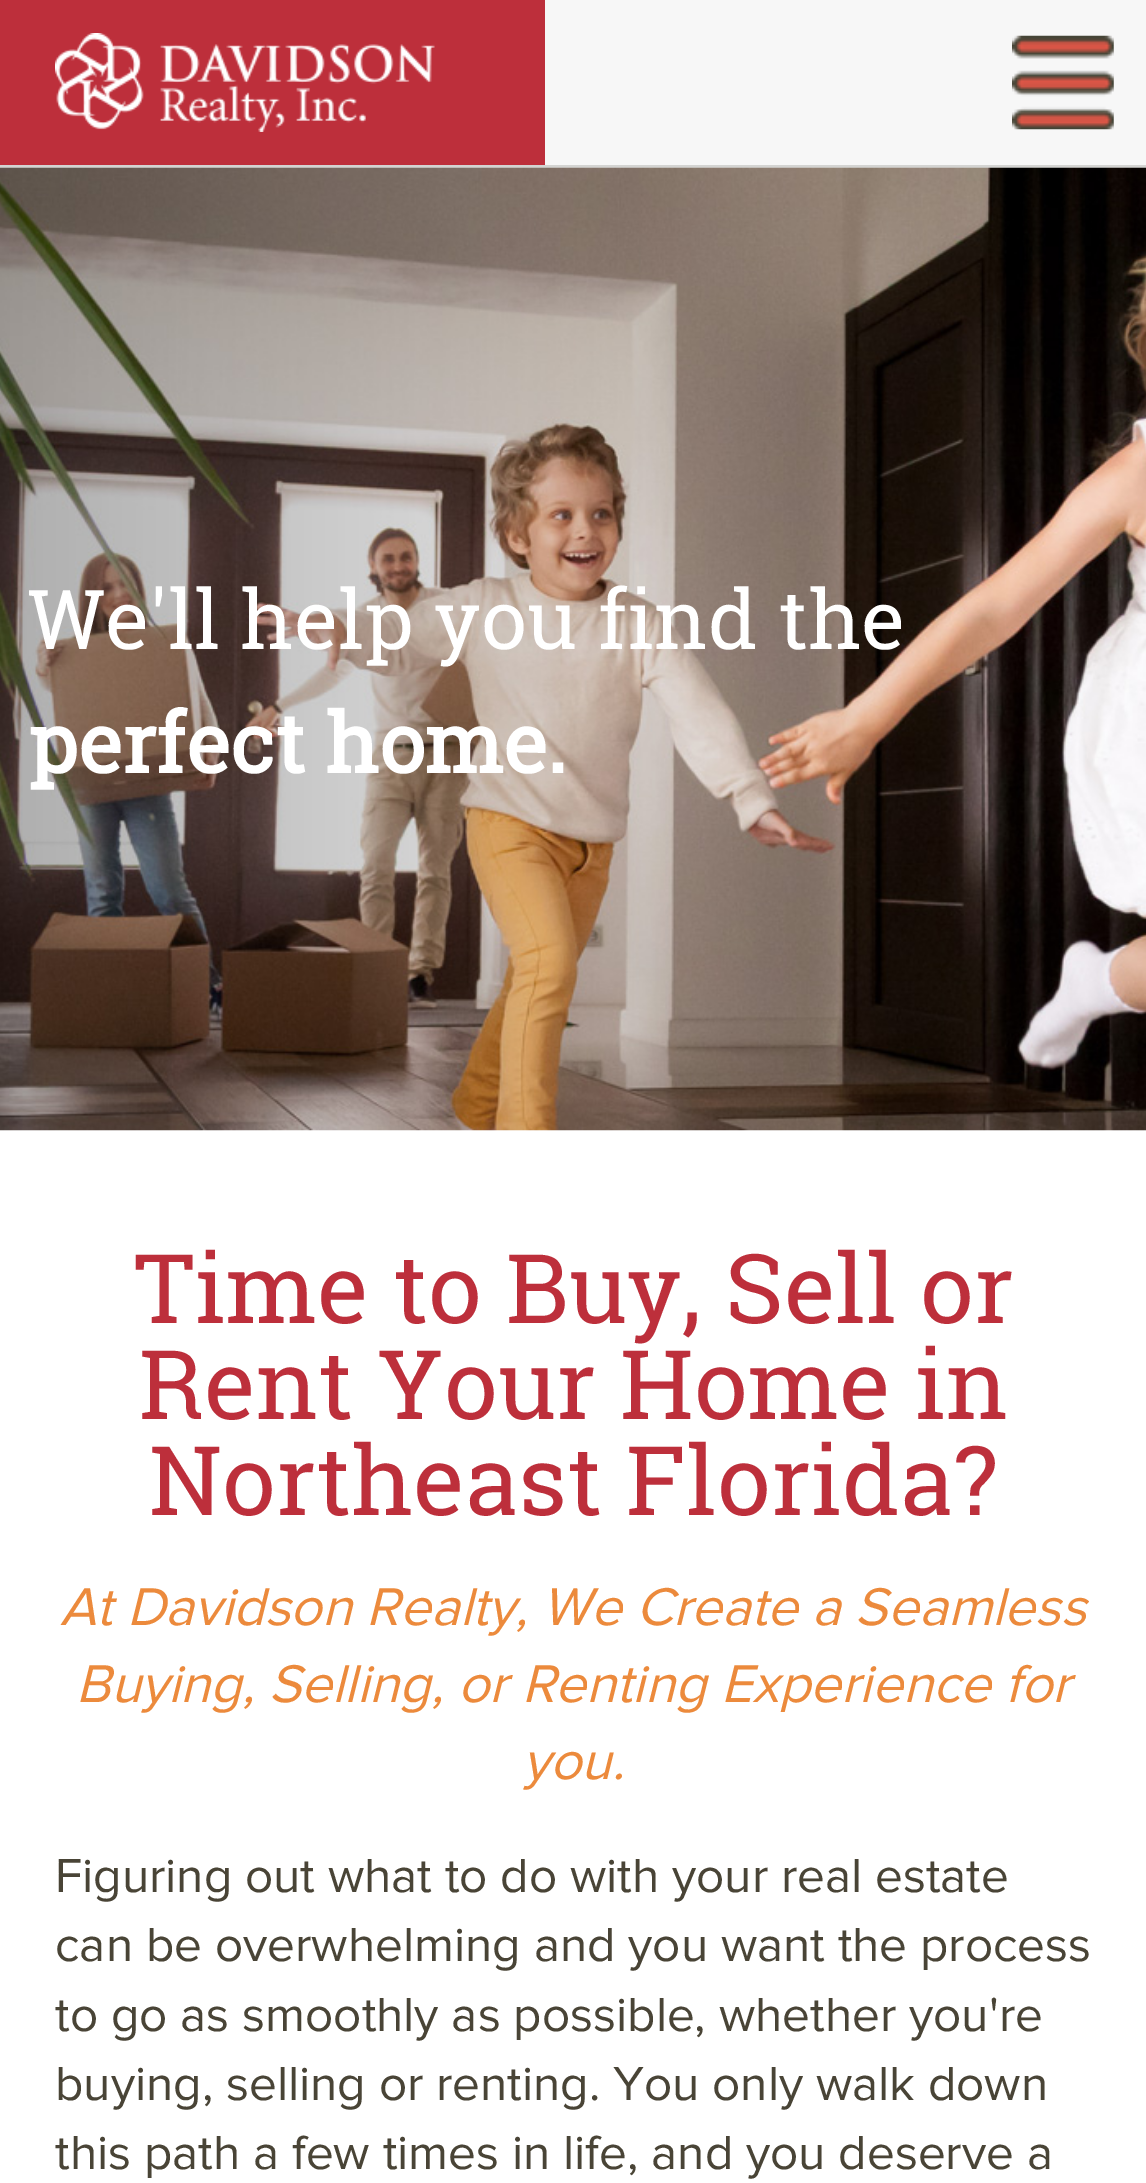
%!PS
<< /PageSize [1146 2183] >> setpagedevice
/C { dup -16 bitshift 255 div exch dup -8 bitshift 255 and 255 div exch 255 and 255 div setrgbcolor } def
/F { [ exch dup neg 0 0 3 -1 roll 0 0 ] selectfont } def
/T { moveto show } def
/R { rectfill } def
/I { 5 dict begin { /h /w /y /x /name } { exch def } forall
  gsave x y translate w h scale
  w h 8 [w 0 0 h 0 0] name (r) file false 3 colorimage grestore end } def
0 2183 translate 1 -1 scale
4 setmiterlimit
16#FFFFFF C
0 0 1146 2183 R
16#D4D4D2 C
0 165 1146 3 R
16#BD2F3B C
0 0 545 165 R
(1.rgb) 55 33 380 99 I
16#F7F7F7 C
545 0 601 165 R
(2.rgb) 1012 35 102 95 I
(3.rgb) 0 167 1146 964 I
/RobotoSlab-Regular 82.5 F
16#FFFFFF C
(We'll help you find the) 28 649 T
/RobotoSlab-Bold 82.5 F
(perfect home.) 28 773 T
/RobotoSlab-Regular 96.25 F
16#BD2F3B C
(Time to Buy, Sell or) 134 1323 T
(Rent Your Home in) 139 1419 T
(Northeast Florida?) 149 1515 T
/ProximaNova-Italic 55 F
16#EC8A3C C
(At Davidson Realty, We Create a Seamless) 60 1625 T
(Buying, Selling, or Renting Experience for) 76 1702 T
(you.) 523 1779 T
/ProximaNova-Regular 49.5 F
16#494436 C
(Figuring out what to do with your real estate) 55 1892 T
(can be overwhelming and you want the process) 55 1961 T
(to go as smoothly as possible, whether you're) 55 2031 T
(buying, selling or renting. You only walk down) 55 2100 T
(this path a few times in life, and you deserve a) 55 2169 T
showpage
